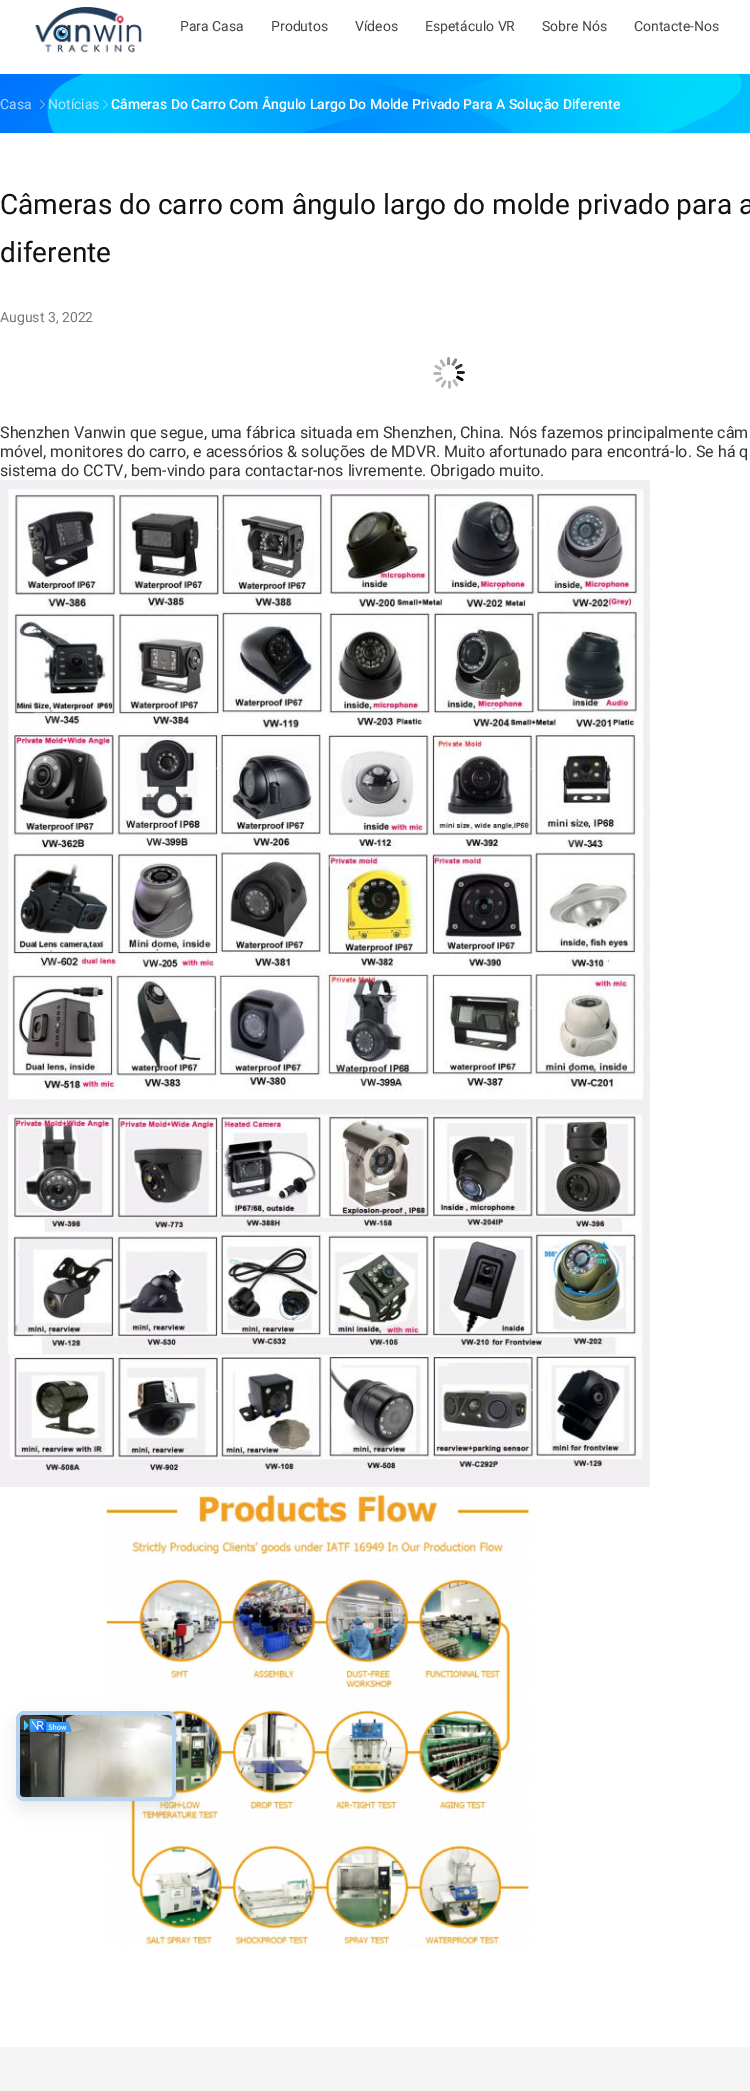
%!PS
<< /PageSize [750 2091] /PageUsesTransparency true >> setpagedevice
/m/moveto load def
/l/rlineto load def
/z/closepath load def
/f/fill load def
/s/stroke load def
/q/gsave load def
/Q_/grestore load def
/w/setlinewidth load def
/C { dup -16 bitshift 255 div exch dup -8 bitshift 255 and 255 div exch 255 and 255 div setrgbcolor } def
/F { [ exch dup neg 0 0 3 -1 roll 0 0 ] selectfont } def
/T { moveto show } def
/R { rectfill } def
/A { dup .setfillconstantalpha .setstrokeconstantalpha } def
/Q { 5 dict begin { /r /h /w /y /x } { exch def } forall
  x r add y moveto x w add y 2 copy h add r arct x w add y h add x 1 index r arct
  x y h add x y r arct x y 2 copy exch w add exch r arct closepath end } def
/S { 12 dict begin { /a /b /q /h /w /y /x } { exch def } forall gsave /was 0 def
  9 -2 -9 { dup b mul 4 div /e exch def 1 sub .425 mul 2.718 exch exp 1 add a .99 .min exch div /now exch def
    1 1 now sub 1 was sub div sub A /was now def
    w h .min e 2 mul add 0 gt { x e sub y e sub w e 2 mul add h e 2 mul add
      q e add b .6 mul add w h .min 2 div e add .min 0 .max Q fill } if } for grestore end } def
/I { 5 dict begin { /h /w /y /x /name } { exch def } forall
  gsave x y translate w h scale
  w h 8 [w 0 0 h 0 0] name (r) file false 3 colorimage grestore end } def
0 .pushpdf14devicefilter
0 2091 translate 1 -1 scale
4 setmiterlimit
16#FFFFFF C
0 0 750 2091 R
(1.rgb) 34 7 108 46 I
/Roboto-Regular 14 F
16#444444 C
(Para Casa) 180 31 T
(Produtos) 271 31 T
(Vídeos) 355 31 T
(Espetáculo VR) 425 31 T
(Sobre Nós) 542 31 T
(Contacte-Nos) 634 31 T
q 0 74 m 750 0 l 0 59 l -750 0 l z clip newpath
<< /ShadingType 2 /ColorSpace /DeviceRGB /Coords [173 -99 577 306] /Extend [true true] /Function << /FunctionType 2 /Domain [0 1] /C0 [0 .451 1] /C1 [0 .769 1] /N 1 >> >> shfill Q_
(2.rgb) 47 74 467 59 I
(3.rgb) 302 74 440 59 I
16#B3D6FF C
(Casa) 0 109 T
(4.rgb) 40 100 5 9 I
16#B3ECFE C
(Notícias) 48 109 T
(5.rgb) 103 100 5 9 I
/Roboto-Medium 14 F
16#FFFFFF C
(Câmeras Do Carro Com Ângulo Largo Do Molde Privado Para A Solução Diferente) 111 109 T
/Roboto-Regular 28 F
16#111111 C
(Câmeras do carro com ângulo largo do molde privado para a) 0 214 T
(diferente) 0 262 T
/Roboto-Regular 14 F
16#777777 C
(August 3, 2022) 0 322 T
(6.rgb) 433 357 32 32 I
/Roboto-Regular 16 F
16#333333 C
(Shenzhen Vanwin que segue, uma fábrica situada em Shenzhen, China. Nós fazemos principalmente câm) 0 438 T
(móvel, monitores do carro, e acessórios & soluções de MDVR. Muito afortunado para encontrá-lo. Se há q) 0 457 T
(sistema do CCTV, bem-vindo para contactar-nos livremente. Obrigado muito.) 0 476 T
(7.rgb) 0 480 650 1007 I
(8.rgb) 106 1494 424 454 I
16#000000 C
16 1719 160 90 8 8 .08 S
16#EEEEEE C
16 1711 160 90 8 Q f
0.24 A
16#0478ED C
4 w
18 1713 156 86 6 Q s
1 A
(9.rgb) 20 1715 152 82 I
(10.rgb) 24 1719 48 13 I
16#F5F5F5 C
0 2047 750 44 R
.poppdf14devicefilter showpage
